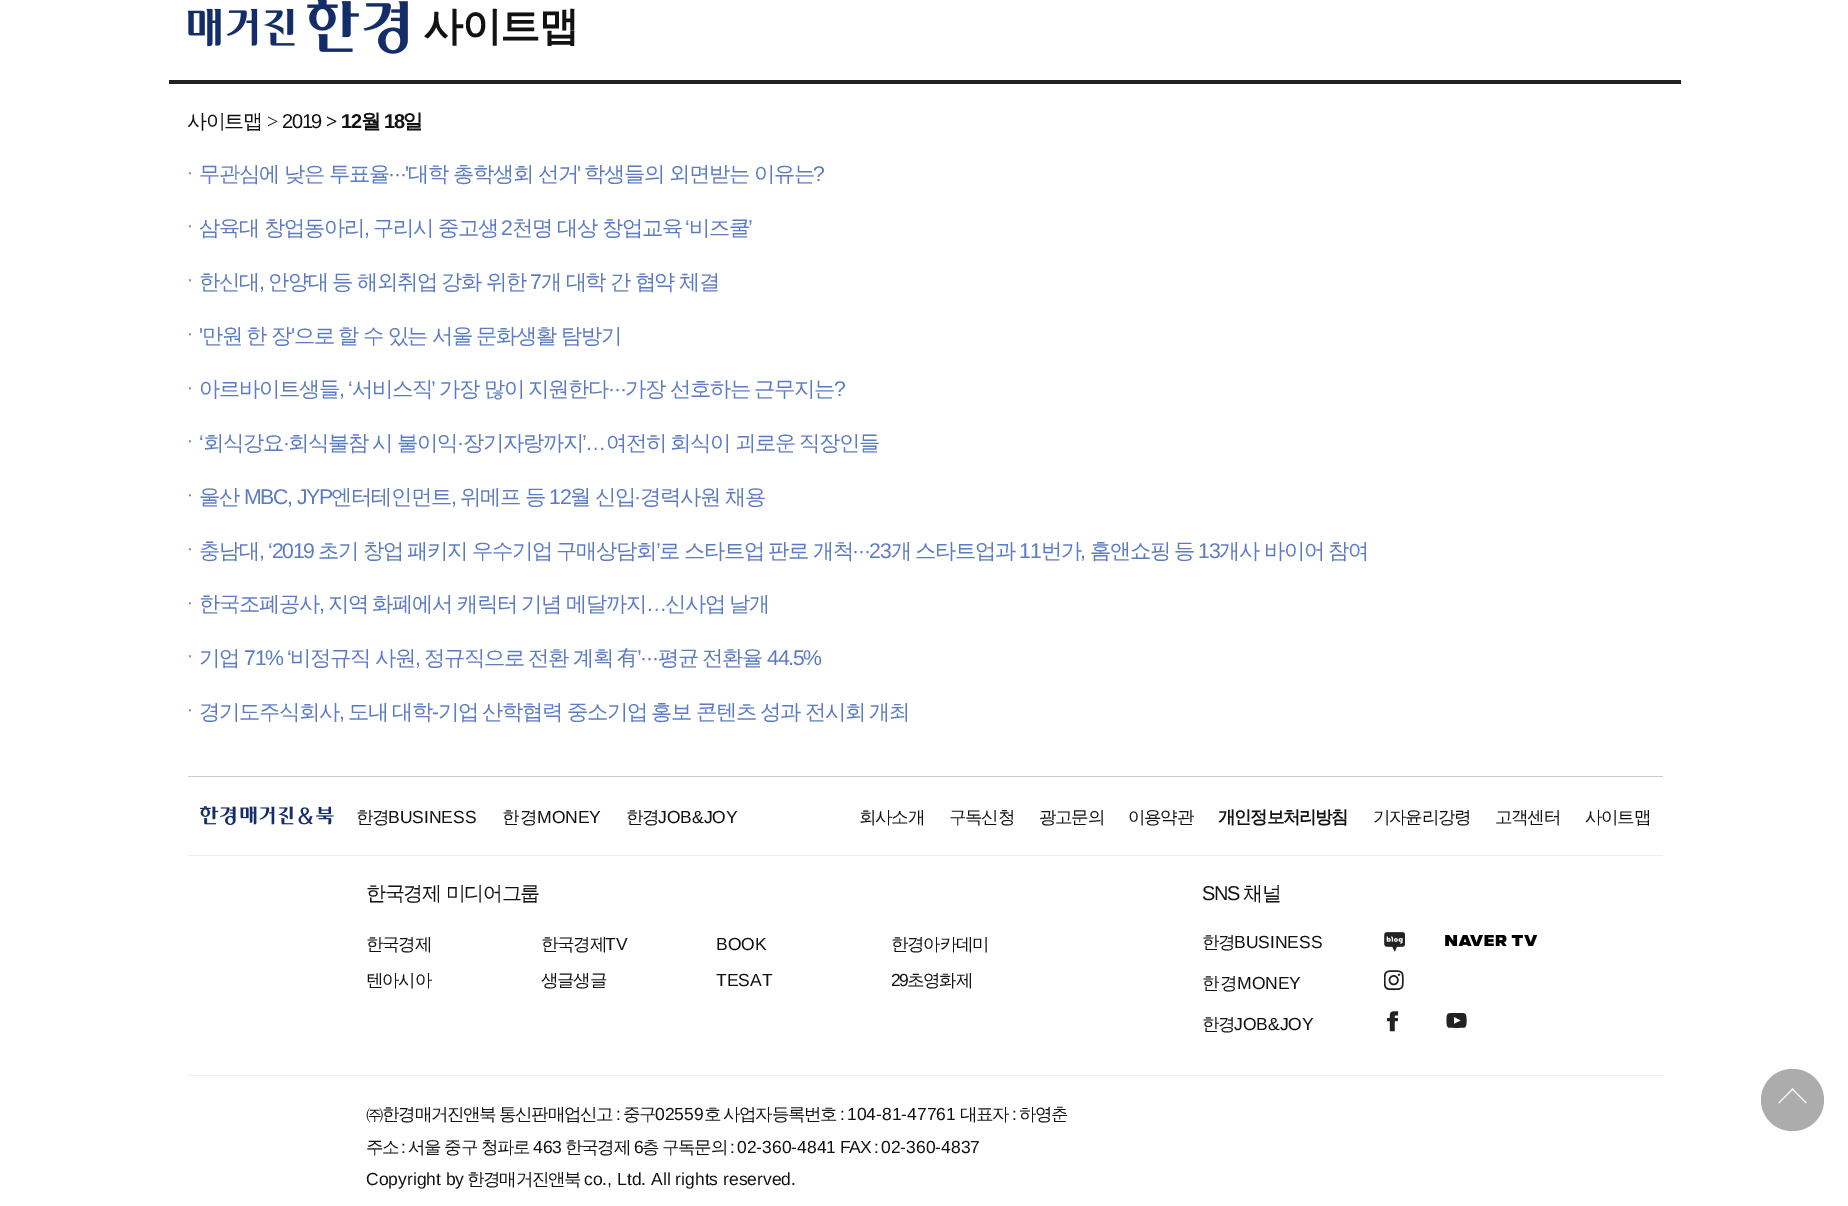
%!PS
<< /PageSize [1848 1206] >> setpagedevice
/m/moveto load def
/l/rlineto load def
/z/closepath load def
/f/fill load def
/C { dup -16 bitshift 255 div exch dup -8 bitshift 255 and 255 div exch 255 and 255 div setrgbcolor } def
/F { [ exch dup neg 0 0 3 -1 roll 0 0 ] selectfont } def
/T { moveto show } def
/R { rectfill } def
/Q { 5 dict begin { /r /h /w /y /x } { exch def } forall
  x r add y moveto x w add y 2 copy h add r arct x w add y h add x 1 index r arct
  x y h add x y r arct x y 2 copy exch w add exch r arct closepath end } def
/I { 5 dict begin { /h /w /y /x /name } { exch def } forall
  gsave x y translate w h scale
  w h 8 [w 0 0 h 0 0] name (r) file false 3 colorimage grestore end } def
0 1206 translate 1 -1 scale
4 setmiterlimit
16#FFFFFF C
0 0 1848 1206 R
16#222222 C
169 80 1512 4 R
(1.rgb) 188 0 220 54 I
/WenQuanYiZenHei-Bold 40 F
16#121212 C
423 40 m -1.3 0 (사이트맵) ashow
/WenQuanYiZenHei-Medium 20 F
187 128 m -1.3 0 (사이트맵) ashow
/LiberationSerif-Regular 20 F
267 128 m -1.3 0 (>) ashow
/LiberationSans-Regular 20 F
282 128 m -1.3 0 (2019) ashow
/LiberationSerif-Bold 20 F
326 128 m -1.3 0 (>) ashow
/LiberationSans-Bold 20 F
341 128 m -1.3 0 (12) ashow
/WenQuanYiZenHei-Bold 20 F
361 128 m -1.3 0 (월) ashow
/LiberationSans-Bold 20 F
384 128 m -1.3 0 (18) ashow
/WenQuanYiZenHei-Bold 20 F
403 128 m -1.3 0 (일) ashow
/LiberationSans-Regular 17.5 F
16#5C7BC2 C
187 178 m -1.3 0 (·) ashow
/WenQuanYiZenHei-Medium 21.25 F
199 181 m -1.3 0 (무관심에 낮은 투표율) ashow
/LiberationSans-Regular 21.25 F
388 181 m -1.3 0 (···') ashow
/WenQuanYiZenHei-Medium 21.25 F
408 181 m -1.3 0 (대학 총학생회 선거) ashow
/LiberationSans-Regular 21.25 F
577 181 m -1.3 0 (') ashow
/WenQuanYiZenHei-Medium 21.25 F
584 181 m -1.3 0 (학생들의 외면받는 이유는) ashow
/LiberationSans-Regular 21.25 F
813 181 m -1.3 0 (?) ashow
/LiberationSans-Regular 17.5 F
187 231 m -1.3 0 (·) ashow
/WenQuanYiZenHei-Medium 21.25 F
199 235 m -1.3 0 (삼육대 창업동아리) ashow
373 235 m -1.3 0 (구리시 중고생) ashow
/LiberationSans-Regular 21.25 F
501 235 m -1.3 0 (2) ashow
/WenQuanYiZenHei-Medium 21.25 F
512 235 m -1.3 0 (천명 대상 창업교육) ashow
/LiberationSans-Regular 21.25 F
685 235 m -1.3 0 (‘) ashow
/WenQuanYiZenHei-Medium 21.25 F
689 235 m -1.3 0 (비즈쿨) ashow
/LiberationSans-Regular 21.25 F
748 235 m -1.3 0 (’) ashow
364 235 m -1.3 0 (,) ashow
/LiberationSans-Regular 17.5 F
187 285 m -1.3 0 (·) ashow
/WenQuanYiZenHei-Medium 21.25 F
199 289 m -1.3 0 (한신대) ashow
/LiberationSans-Regular 21.25 F
259 289 m -1.3 0 (,) ashow
/WenQuanYiZenHei-Medium 21.25 F
268 289 m -.5 0 32 -1.3 0 (안양대 등 해외취업 강화 위한) awidthshow
/LiberationSans-Regular 21.25 F
530 289 m -1.3 0 (7) ashow
/WenQuanYiZenHei-Medium 21.25 F
541 289 m -.5 0 32 -1.3 0 (개 대학 간 협약 체결) awidthshow
/LiberationSans-Regular 17.5 F
187 339 m -1.3 0 (·) ashow
/LiberationSans-Regular 21.25 F
199 343 m -1.3 0 (') ashow
/WenQuanYiZenHei-Medium 21.25 F
202 343 m -.5 0 32 -1.3 0 (만원 한 장) awidthshow
/LiberationSans-Regular 21.25 F
291 343 m -1.3 0 (') ashow
/WenQuanYiZenHei-Medium 21.25 F
294 343 m -.5 0 32 -1.3 0 (으로 할 수 있는 서울 문화생활 탐방기) awidthshow
/LiberationSans-Regular 17.5 F
187 393 m -1.3 0 (·) ashow
/WenQuanYiZenHei-Medium 21.25 F
199 396 m -1.3 0 (아르바이트생들) ashow
/LiberationSans-Regular 21.25 F
339 396 m -1.3 0 (, ‘) ashow
/WenQuanYiZenHei-Medium 21.25 F
352 396 m -1.3 0 (서비스직) ashow
/LiberationSans-Regular 21.25 F
431 396 m -1.3 0 (’) ashow
/WenQuanYiZenHei-Medium 21.25 F
439 396 m -1.3 0 (가장) ashow
484 396 m -1.3 0 (많이) ashow
528 396 m -1.3 0 (지원한다) ashow
/LiberationSans-Regular 21.25 F
608 396 m -1.3 0 (···) ashow
/WenQuanYiZenHei-Medium 21.25 F
625 396 m -1.3 0 (가장) ashow
670 396 m -1.3 0 (선호하는) ashow
754 396 m -1.3 0 (근무지는) ashow
/LiberationSans-Regular 21.25 F
834 396 m -1.3 0 (?) ashow
/LiberationSans-Regular 17.5 F
187 446 m -1.3 0 (·) ashow
/LiberationSans-Regular 21.25 F
199 450 m -1.3 0 (‘) ashow
/WenQuanYiZenHei-Medium 21.25 F
203 450 m -1.3 0 (회식강요) ashow
/LiberationSans-Regular 21.25 F
283 450 m -1.3 0 (·) ashow
/WenQuanYiZenHei-Medium 21.25 F
288 450 m -.5 0 32 -1.3 0 (회식불참 시 불이익) awidthshow
/LiberationSans-Regular 21.25 F
457 450 m -1.3 0 (·) ashow
/WenQuanYiZenHei-Medium 21.25 F
463 450 m -1.3 0 (장기자랑까지) ashow
/LiberationSans-Regular 21.25 F
582 450 m -1.3 0 (’…) ashow
/WenQuanYiZenHei-Medium 21.25 F
606 450 m -.5 0 32 -1.3 0 (여전히 회식이 괴로운 직장인들) awidthshow
/LiberationSans-Regular 17.5 F
187 500 m -1.3 0 (·) ashow
/WenQuanYiZenHei-Medium 21.25 F
199 504 m -1.3 0 (울산) ashow
/LiberationSans-Regular 21.25 F
244 504 m -1.3 0 (MBC, JYP) ashow
/WenQuanYiZenHei-Medium 21.25 F
331 504 m -1.3 0 (엔터테인먼트) ashow
460 504 m -1.3 0 (위메프) ashow
525 504 m -1.3 0 (등) ashow
/LiberationSans-Regular 21.25 F
549 504 m -1.3 0 (12) ashow
/WenQuanYiZenHei-Medium 21.25 F
570 504 m -1.3 0 (월) ashow
595 504 m -1.3 0 (신입) ashow
/LiberationSans-Regular 21.25 F
634 504 m -1.3 0 (·) ashow
/WenQuanYiZenHei-Medium 21.25 F
640 504 m -1.3 0 (경력사원) ashow
725 504 m -1.3 0 (채용) ashow
/LiberationSans-Regular 21.25 F
451 504 m -1.3 0 (,) ashow
/LiberationSans-Regular 17.5 F
187 554 m -1.3 0 (·) ashow
/WenQuanYiZenHei-Medium 21.25 F
199 558 m -1.3 0 (충남대) ashow
/LiberationSans-Regular 21.25 F
259 558 m -1.3 0 (, ‘2019) ashow
/WenQuanYiZenHei-Medium 21.25 F
318 558 m -1.3 0 (초기) ashow
363 558 m -1.3 0 (창업) ashow
407 558 m -1.3 0 (패키지) ashow
472 558 m -1.3 0 (우수기업) ashow
556 558 m -1.3 0 (구매상담회) ashow
/LiberationSans-Regular 21.25 F
656 558 m -1.3 0 (’) ashow
/WenQuanYiZenHei-Medium 21.25 F
659 558 m -1.3 0 (로) ashow
684 558 m -1.3 0 (스타트업) ashow
768 558 m -1.3 0 (판로) ashow
813 558 m -1.3 0 (개척) ashow
/LiberationSans-Regular 21.25 F
852 558 m -1.3 0 (···23) ashow
/WenQuanYiZenHei-Medium 21.25 F
891 558 m -1.3 0 (개) ashow
915 558 m -1.3 0 (스타트업과) ashow
/LiberationSans-Regular 21.25 F
1019 558 m -1.3 0 (11) ashow
/WenQuanYiZenHei-Medium 21.25 F
1041 558 m -1.3 0 (번가) ashow
/LiberationSans-Regular 21.25 F
1080 558 m -1.3 0 (,) ashow
/WenQuanYiZenHei-Medium 21.25 F
1090 558 m -1.3 0 (홈앤쇼핑) ashow
1174 558 m -1.3 0 (등) ashow
/LiberationSans-Regular 21.25 F
1198 558 m -1.3 0 (13) ashow
/WenQuanYiZenHei-Medium 21.25 F
1219 558 m -1.3 0 (개사) ashow
1264 558 m -1.3 0 (바이어) ashow
1328 558 m -1.3 0 (참여) ashow
/LiberationSans-Regular 17.5 F
187 608 m -1.3 0 (·) ashow
/WenQuanYiZenHei-Medium 21.25 F
199 611 m -1.3 0 (한국조폐공사) ashow
/LiberationSans-Regular 21.25 F
319 611 m -1.3 0 (,) ashow
/WenQuanYiZenHei-Medium 21.25 F
328 611 m -.5 0 32 -1.3 0 (지역 화폐에서 캐릭터 기념 메달까지) awidthshow
/LiberationSans-Regular 21.25 F
646 611 m -1.3 0 (…) ashow
/WenQuanYiZenHei-Medium 21.25 F
665 611 m -.5 0 32 -1.3 0 (신사업 날개) awidthshow
/LiberationSans-Regular 17.5 F
187 661 m -1.3 0 (·) ashow
/WenQuanYiZenHei-Medium 21.25 F
199 665 m -1.3 0 (기업) ashow
/LiberationSans-Regular 21.25 F
244 665 m -1.3 0 (71% ‘) ashow
/WenQuanYiZenHei-Medium 21.25 F
290 665 m -1.3 0 (비정규직) ashow
375 665 m -1.3 0 (사원) ashow
/LiberationSans-Regular 21.25 F
415 665 m -1.3 0 (,) ashow
/WenQuanYiZenHei-Medium 21.25 F
424 665 m -1.3 0 (정규직으로) ashow
528 665 m -1.3 0 (전환) ashow
573 665 m -1.3 0 (계획) ashow
617 665 m -1.3 0 (有) ashow
/LiberationSans-Regular 21.25 F
637 665 m -1.3 0 (’···) ashow
/WenQuanYiZenHei-Medium 21.25 F
658 665 m -1.3 0 (평균) ashow
702 665 m -1.3 0 (전환율) ashow
/LiberationSans-Regular 21.25 F
767 665 m -1.3 0 (44.5%) ashow
/LiberationSans-Regular 17.5 F
187 715 m -1.3 0 (·) ashow
/WenQuanYiZenHei-Medium 21.25 F
199 719 m -1.3 0 (경기도주식회사) ashow
348 719 m -.5 0 32 -1.3 0 (도내 대학) awidthshow
/LiberationSans-Regular 21.25 F
432 719 m -1.3 0 (-) ashow
/WenQuanYiZenHei-Medium 21.25 F
438 719 m -.5 0 32 -1.3 0 (기업 산학협력 중소기업 홍보 콘텐츠 성과 전시회 개최) awidthshow
/LiberationSans-Regular 21.25 F
339 719 m -1.3 0 (,) ashow
16#CCCCCC C
188 776 1475 1 R
(2.rgb) 200 806 134 19 I
/WenQuanYiZenHei-Medium 17.5 F
16#121212 C
356 823 m -1.3 0 (한경) ashow
/LiberationSans-Regular 17.5 F
(BUSINESS) 388 823 T
/WenQuanYiZenHei-Medium 17.5 F
(한경) 502 823 T
/LiberationSans-Regular 17.5 F
(MONEY) 537 823 T
/WenQuanYiZenHei-Medium 17.5 F
626 823 m -1.3 0 (한경) ashow
/LiberationSans-Regular 17.5 F
(JOB&JOY) 658 823 T
/WenQuanYiZenHei-Medium 17.5 F
859 823 m -1.3 0 (회사소개) ashow
949 823 m -1.3 0 (구독신청) ashow
1039 823 m -1.3 0 (광고문의) ashow
1128 823 m -1.3 0 (이용약관) ashow
/WenQuanYiZenHei-Bold 17.5 F
1218 823 m -1.3 0 (개인정보처리방침) ashow
/WenQuanYiZenHei-Medium 17.5 F
1373 823 m -1.3 0 (기자윤리강령) ashow
1495 823 m -1.3 0 (고객센터) ashow
1585 823 m -1.3 0 (사이트맵) ashow
16#EEEEEE C
188 855 1475 1 R
/WenQuanYiZenHei-Medium 20 F
16#121212 C
366 900 m -1.3 0 (한국경제 미디어그룹) ashow
/WenQuanYiZenHei-Medium 17.5 F
366 950 m -1.3 0 (한국경제) ashow
541 950 m -1.3 0 (한국경제) ashow
/LiberationSans-Regular 17.5 F
(TV) 605 950 T
(BOOK) 716 950 T
/WenQuanYiZenHei-Medium 17.5 F
891 950 m -1.3 0 (한경아카데미) ashow
366 986 m -1.3 0 (텐아시아) ashow
541 986 m -1.3 0 (생글생글) ashow
/LiberationSans-Regular 17.5 F
(TESAT) 716 986 T
891 986 m -1.3 0 (29) ashow
/WenQuanYiZenHei-Medium 17.5 F
907 986 m -1.3 0 (초영화제) ashow
/LiberationSans-Regular 20 F
1202 900 m -1.3 0 (SNS) ashow
/WenQuanYiZenHei-Medium 20 F
1243 900 m -1.3 0 (채널) ashow
/WenQuanYiZenHei-Medium 17.5 F
1202 948 m -1.3 0 (한경) ashow
/LiberationSans-Regular 17.5 F
(BUSINESS) 1234 948 T
(3.rgb) 1384 932 21 20 I
(4.rgb) 1445 935 93 11 I
/WenQuanYiZenHei-Medium 17.5 F
(한경) 1202 989 T
/LiberationSans-Regular 17.5 F
(MONEY) 1237 989 T
(5.rgb) 1384 970 20 21 I
/WenQuanYiZenHei-Medium 17.5 F
1202 1030 m -1.3 0 (한경) ashow
/LiberationSans-Regular 17.5 F
(JOB&JOY) 1234 1030 T
(6.rgb) 1387 1011 12 21 I
(7.rgb) 1446 1013 21 15 I
16#EEEEEE C
188 1075 1475 1 R
/WenQuanYiZenHei-Medium 17.5 F
16#121212 C
366 1120 m -1.3 0 (㈜한경매거진앤북) ashow
499 1120 m -1.3 0 (통신판매업신고) ashow
/LiberationSans-Regular 17.5 F
616 1120 m -1.3 0 (:) ashow
/WenQuanYiZenHei-Medium 17.5 F
623 1120 m -1.3 0 (중구) ashow
/LiberationSans-Regular 17.5 F
(02559) 655 1120 T
/WenQuanYiZenHei-Medium 17.5 F
704 1120 m -1.3 0 (호) ashow
723 1120 m -1.3 0 (사업자등록번호) ashow
/LiberationSans-Regular 17.5 F
840 1120 m -1.3 0 (:) ashow
(104-81-47761) 847 1120 T
/WenQuanYiZenHei-Medium 17.5 F
960 1120 m -1.3 0 (대표자) ashow
/LiberationSans-Regular 17.5 F
1012 1120 m -1.3 0 (:) ashow
/WenQuanYiZenHei-Medium 17.5 F
1019 1120 m -1.3 0 (하영춘) ashow
366 1153 m -1.3 0 (주소) ashow
/LiberationSans-Regular 17.5 F
401 1153 m -1.3 0 (:) ashow
/WenQuanYiZenHei-Medium 17.5 F
408 1153 m -1.3 0 (서울 중구 청파로) ashow
/LiberationSans-Regular 17.5 F
(463) 533 1153 T
/WenQuanYiZenHei-Medium 17.5 F
565 1153 m -1.3 0 (한국경제) ashow
/LiberationSans-Regular 17.5 F
634 1153 m -1.3 0 (6) ashow
/WenQuanYiZenHei-Medium 17.5 F
642 1153 m -1.3 0 (층) ashow
662 1153 m -1.3 0 (구독문의) ashow
/LiberationSans-Regular 17.5 F
730 1153 m -1.3 0 (:) ashow
(02-360-4841) 737 1153 T
840 1153 m -1.3 0 (FAX :) ashow
(02-360-4837) 881 1153 T
(Copyright by) 366 1185 T
/WenQuanYiZenHei-Medium 17.5 F
467 1185 m -1.3 0 (한경매거진앤북) ashow
/LiberationSans-Regular 17.5 F
(co., Ltd. All rights reserved.) 584 1185 T
16#ACACAC C
1761 1069 63 62 31 Q f
16#FFFFFF C
1792.5 1088.5 m 14 14 l -.5 1 l -14.5 -14.5 l z f
1792.5 1088.5 m 1 .5 l -14.5 14.5 l -.5 -1 l z f
showpage
